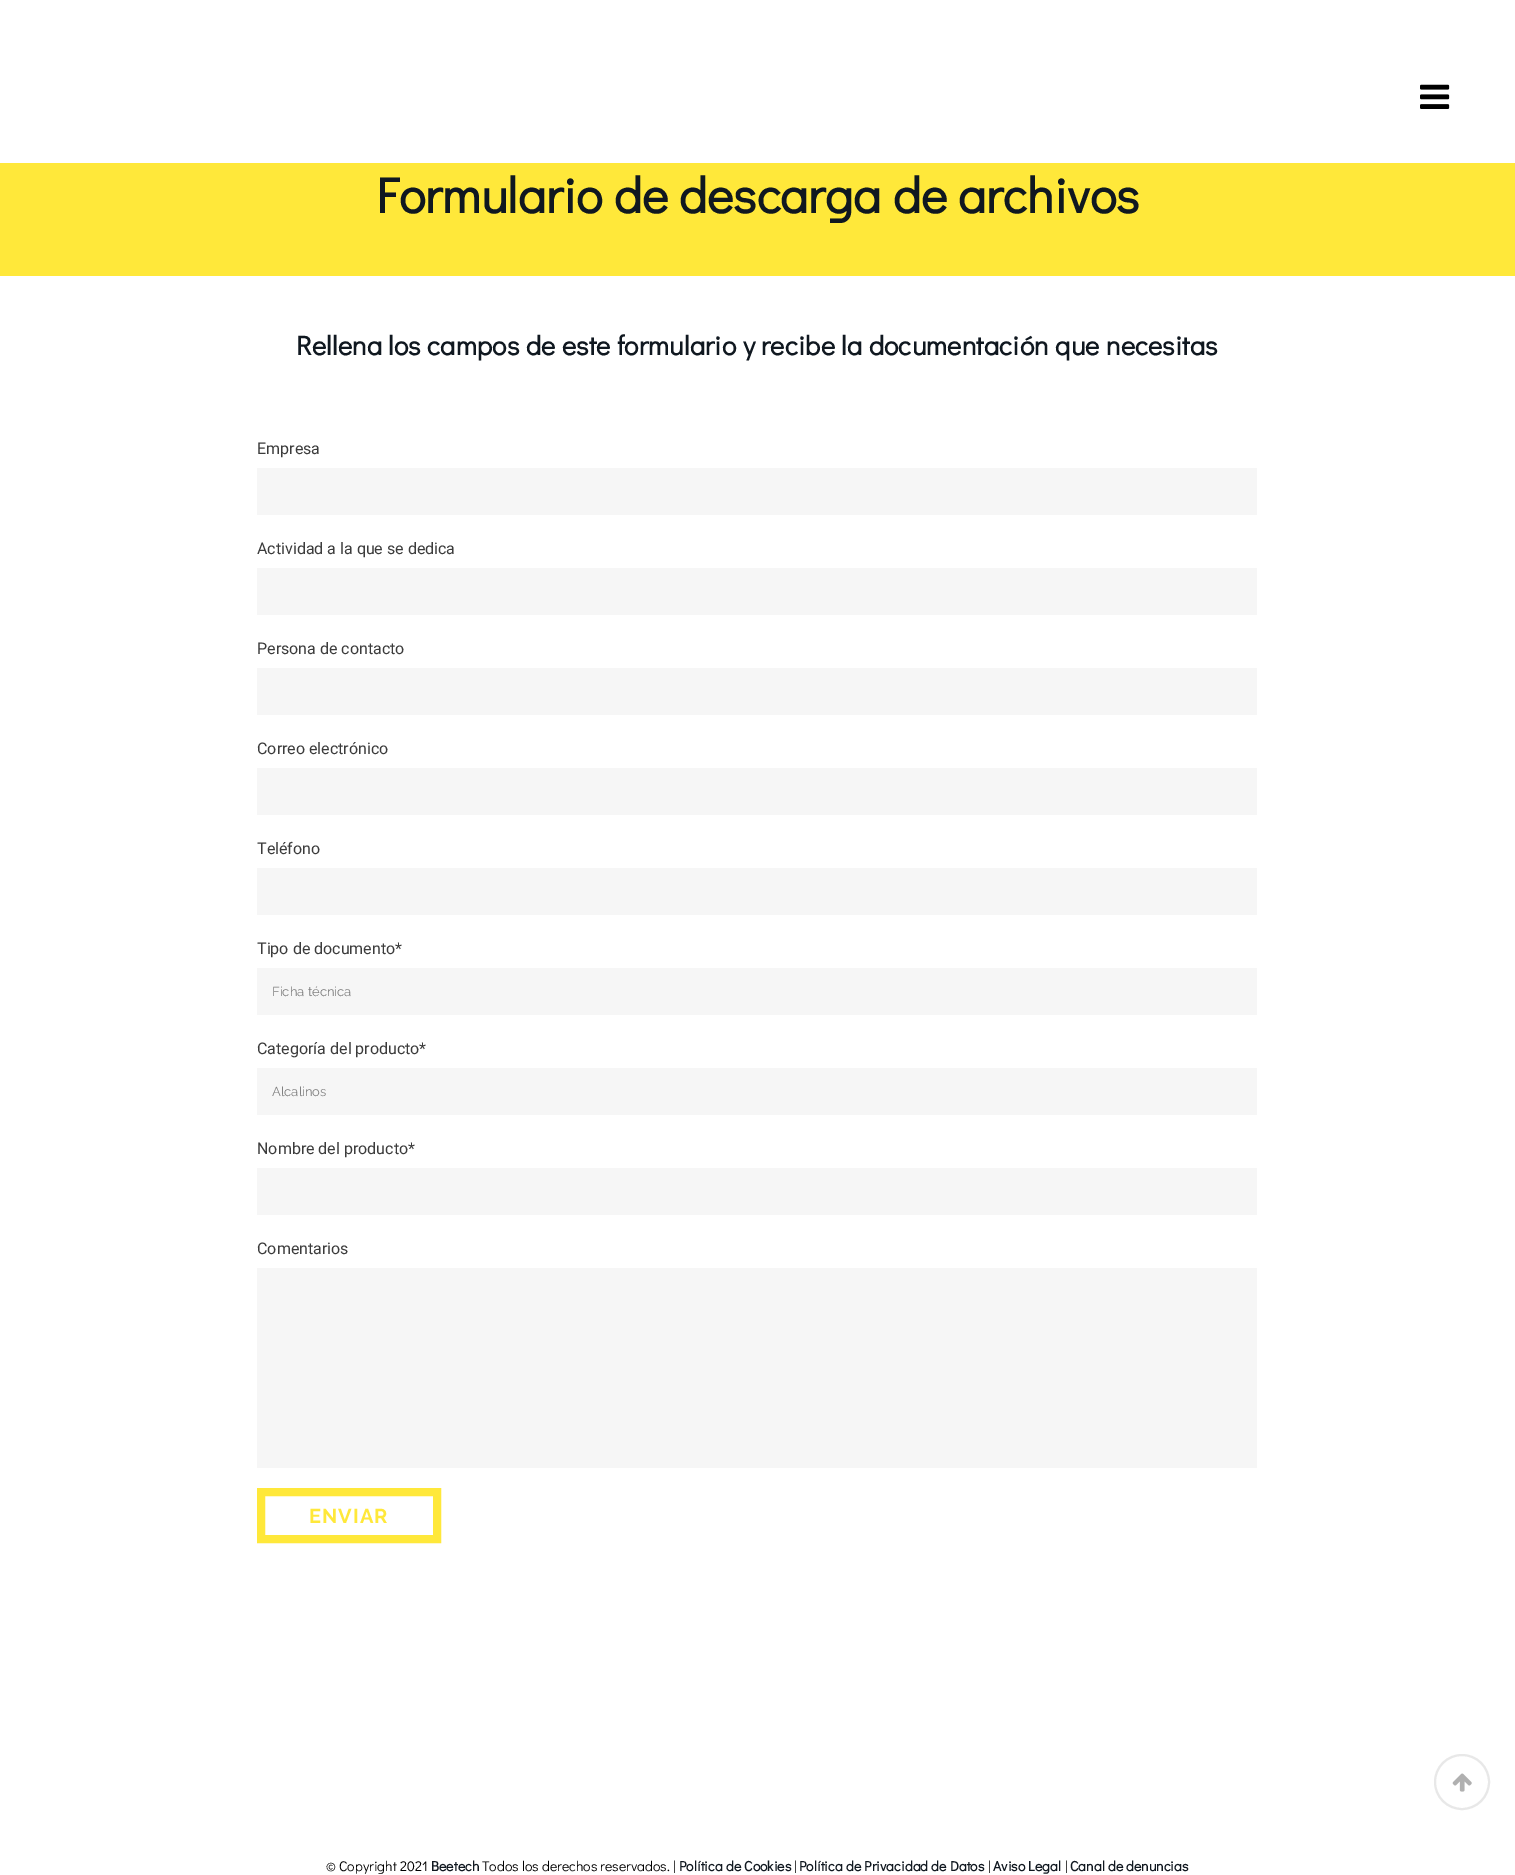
%!PS
<< /PageSize [1515 1875] >> setpagedevice
/m/moveto load def
/s/stroke load def
/w/setlinewidth load def
/C { dup -16 bitshift 255 div exch dup -8 bitshift 255 and 255 div exch 255 and 255 div setrgbcolor } def
/F { [ exch dup neg 0 0 3 -1 roll 0 0 ] selectfont } def
/T { moveto show } def
/R { rectfill } def
/O { newpath 0 360 arc closepath } def
/I { 5 dict begin { /h /w /y /x /name } { exch def } forall
  gsave x y translate w h scale
  w h 8 [w 0 0 h 0 0] name (r) file false 3 colorimage grestore end } def
0 1875 translate 1 -1 scale
4 setmiterlimit
16#FFFFFF C
0 0 1515 1875 R
(1.rgb) 1420 84 30 25 I
16#FFE83A C
0 163 1515 113 R
/DidactGothic-Bold 50 F
16#101820 C
(Formulario de descarga de archivos) 376 213 T
/DidactGothic-Bold 27 F
296 355 m .2 0 (Rellena los campos de este formulario y recibe la documentación que necesitas) ashow
/Roboto-Regular 16 F
16#3C3C3C C
(Empresa) 257 454 T
16#F6F6F6 C
257 468 1000 47 R
16#3C3C3C C
(Actividad a la que se dedica) 257 554 T
16#F6F6F6 C
257 568 1000 47 R
16#3C3C3C C
(Persona de contacto) 257 654 T
16#F6F6F6 C
257 668 1000 47 R
16#3C3C3C C
(Correo electrónico) 257 754 T
16#F6F6F6 C
257 768 1000 47 R
16#3C3C3C C
(Teléfono) 257 854 T
16#F6F6F6 C
257 868 1000 47 R
16#3C3C3C C
(Tipo de documento*) 257 954 T
16#F6F6F6 C
257 968 1000 47 R
/Raleway-Regular 13 F
16#818181 C
(Ficha técnica) 272 996 T
/Roboto-Regular 16 F
16#3C3C3C C
(Categoría del producto*) 257 1054 T
16#F6F6F6 C
257 1068 1000 47 R
/Raleway-Regular 13 F
16#818181 C
(Alcalinos) 272 1096 T
/Roboto-Regular 16 F
16#3C3C3C C
(Nombre del producto*) 257 1154 T
16#F6F6F6 C
257 1168 1000 47 R
16#3C3C3C C
(Comentarios) 257 1254 T
16#F6F6F6 C
257 1268 1000 200 R
16#FFE83A C
8 w
261 1492 176 47 rectstroke
/Raleway-Bold 20 F
309 1523 m 1 0 (ENVIAR) ashow
16#E8E8E8 C
2 w
1462 1782 27 O s
(2.rgb) 1452 1773 20 19 I
/DidactGothic-Regular 14 F
16#000000 C
(© Copyright 2021) 326 1871 T
/DidactGothic-Bold 14 F
16#101820 C
(Beetech) 431 1871 T
/DidactGothic-Regular 14 F
16#000000 C
(Todos los derechos reservados. |) 482 1871 T
/DidactGothic-Bold 14 F
16#101820 C
(Política de Cookies) 679 1871 T
/DidactGothic-Regular 14 F
16#000000 C
(|) 794 1871 T
/DidactGothic-Bold 14 F
16#101820 C
(Política de Privacidad de Datos) 799 1871 T
/DidactGothic-Regular 14 F
16#000000 C
(|) 988 1871 T
/DidactGothic-Bold 14 F
16#101820 C
(Aviso Legal) 993 1871 T
/DidactGothic-Regular 14 F
16#000000 C
(|) 1065 1871 T
/DidactGothic-Bold 14 F
16#101820 C
(Canal de denuncias) 1070 1871 T
showpage
